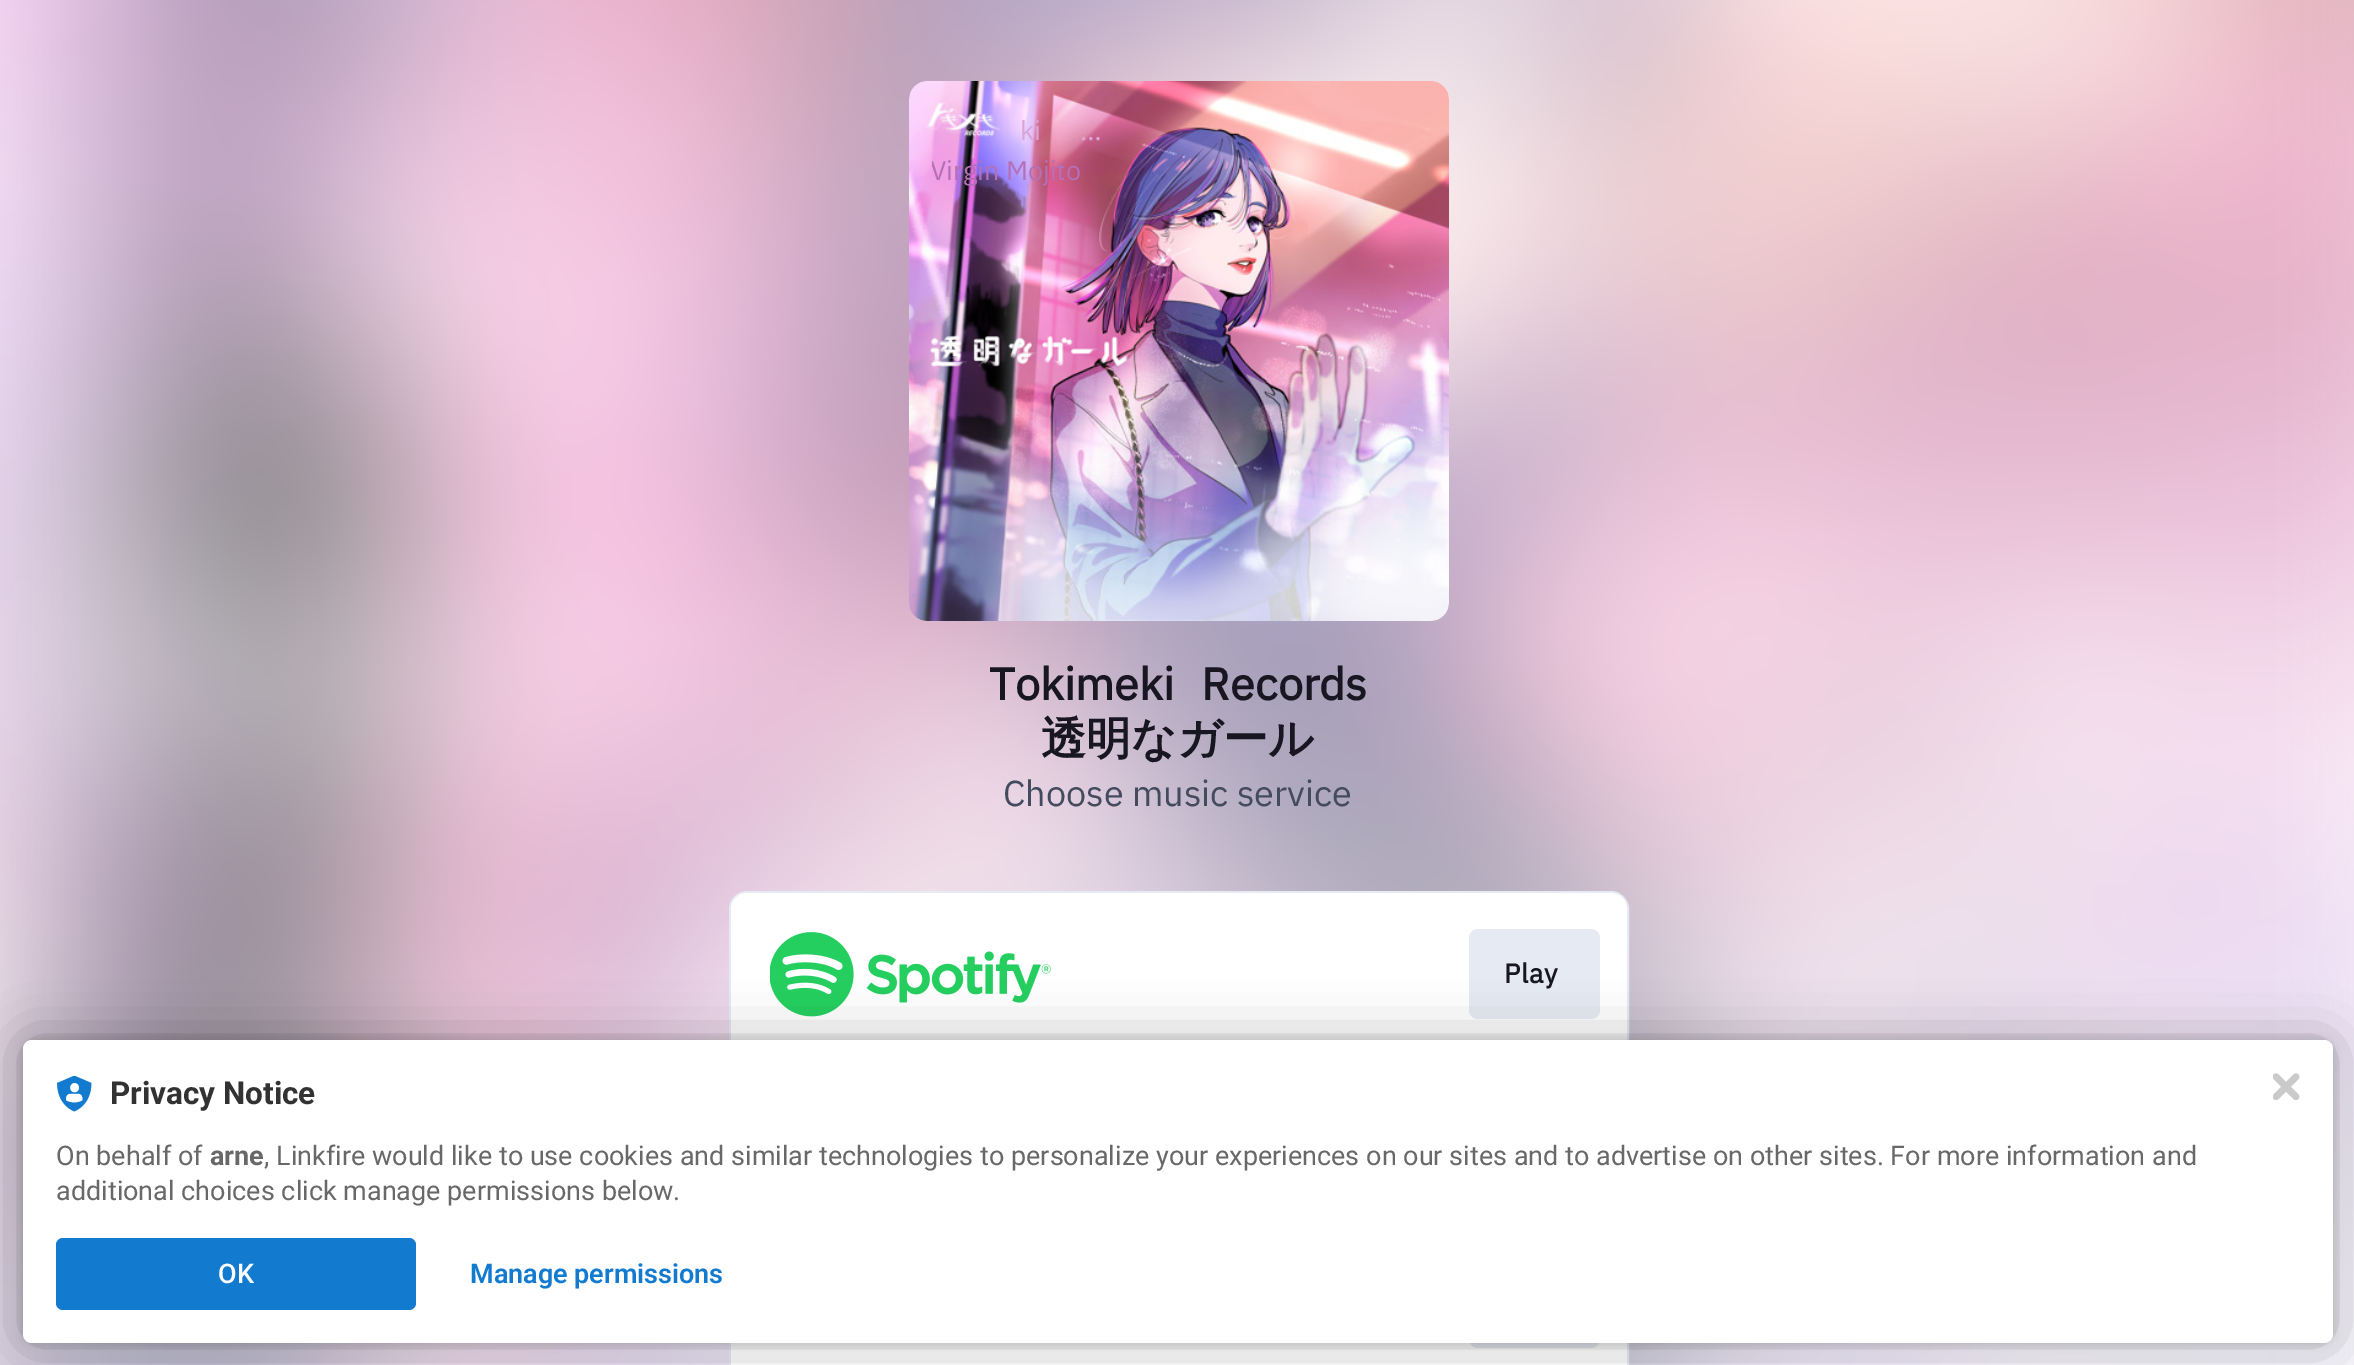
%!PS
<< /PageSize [2354 1365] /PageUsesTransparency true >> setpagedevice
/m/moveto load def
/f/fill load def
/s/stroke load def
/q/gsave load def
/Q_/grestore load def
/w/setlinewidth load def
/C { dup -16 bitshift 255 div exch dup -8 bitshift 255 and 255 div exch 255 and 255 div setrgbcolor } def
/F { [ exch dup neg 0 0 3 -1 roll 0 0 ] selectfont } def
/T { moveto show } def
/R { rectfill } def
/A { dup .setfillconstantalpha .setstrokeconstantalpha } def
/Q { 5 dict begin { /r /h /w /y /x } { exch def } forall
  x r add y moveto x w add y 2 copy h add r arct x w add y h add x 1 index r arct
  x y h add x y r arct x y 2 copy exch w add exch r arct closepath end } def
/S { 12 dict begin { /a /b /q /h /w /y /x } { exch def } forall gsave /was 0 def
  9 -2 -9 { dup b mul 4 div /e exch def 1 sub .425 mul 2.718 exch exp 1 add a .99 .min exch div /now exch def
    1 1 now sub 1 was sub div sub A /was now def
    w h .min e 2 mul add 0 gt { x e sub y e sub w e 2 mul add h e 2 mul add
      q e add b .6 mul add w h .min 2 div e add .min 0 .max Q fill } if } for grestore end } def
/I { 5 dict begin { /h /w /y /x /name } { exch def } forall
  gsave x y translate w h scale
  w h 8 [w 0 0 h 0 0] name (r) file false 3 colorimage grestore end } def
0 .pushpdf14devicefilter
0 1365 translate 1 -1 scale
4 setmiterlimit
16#FFFFFF C
0 0 2354 1365 R
(1.rgb) 0 0 2354 1365 I
(2.rgb) 909 81 540 540 I
/IBMPlexSans-Regular 27 F
16#D9A5D6 C
(ki) 1020 140 T
(…) 1080 140 T
q
932 151 171 40 rectclip
16#B470B6 C
(Virgin Mojito) 930 180 T
Q_
/IBMPlexSans-Bold 45 F
16#181721 C
989 700 m 17 0 32 (Tokimeki Records) widthshow
/WenQuanYiZenHei-Bold 45 F
(透明なガール) 1041 754 T
/IBMPlexSans-Regular 36 F
16#454B5F C
(Choose music service) 1003 806 T
16#E6EAF2 C
2 w
730 892 898 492 17 Q s
16#FFFFFF C
731 893 896 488 16 Q f
(3.rgb) 770 932 281 85 I
16#E6EAF2 C
1469 929 131 90 9 Q f
/IBMPlexSans-Bold 27 F
16#181721 C
1504 983 m .5 0 (Play) ashow
16#E6EAF2 C
1469 1258 131 90 9 Q f
16#000000 C
23 1040 2310 303 9 4.5 .12 S
23 1040 2310 303 9 27 .3 S
16#FFFFFF C
23 1040 2310 303 9 Q f
(4.rgb) 57 1076 35 36 I
/Roboto-Bold 31.5 F
16#323232 C
(Privacy Notice) 110 1104 T
/Roboto-Regular 27 F
16#686868 C
(On behalf of) 56 1165 T
/Roboto-Bold 27 F
(arne) 210 1165 T
/Roboto-Regular 27 F
(, Linkfire would like to use cookies and similar technologies to personalize your experiences on our sites and to advertise on other sites. For more information and) 264 1165 T
(additional choices click manage permissions below.) 56 1200 T
16#137BCF C
56 1238 360 72 7 Q f
/Roboto-Medium 27 F
16#FFFFFF C
(OK) 218 1283 T
/Roboto-SemiBold 27 F
16#137BCF C
(Manage permissions) 470 1283 T
(5.rgb) 2273 1073 27 27 I
.poppdf14devicefilter showpage
